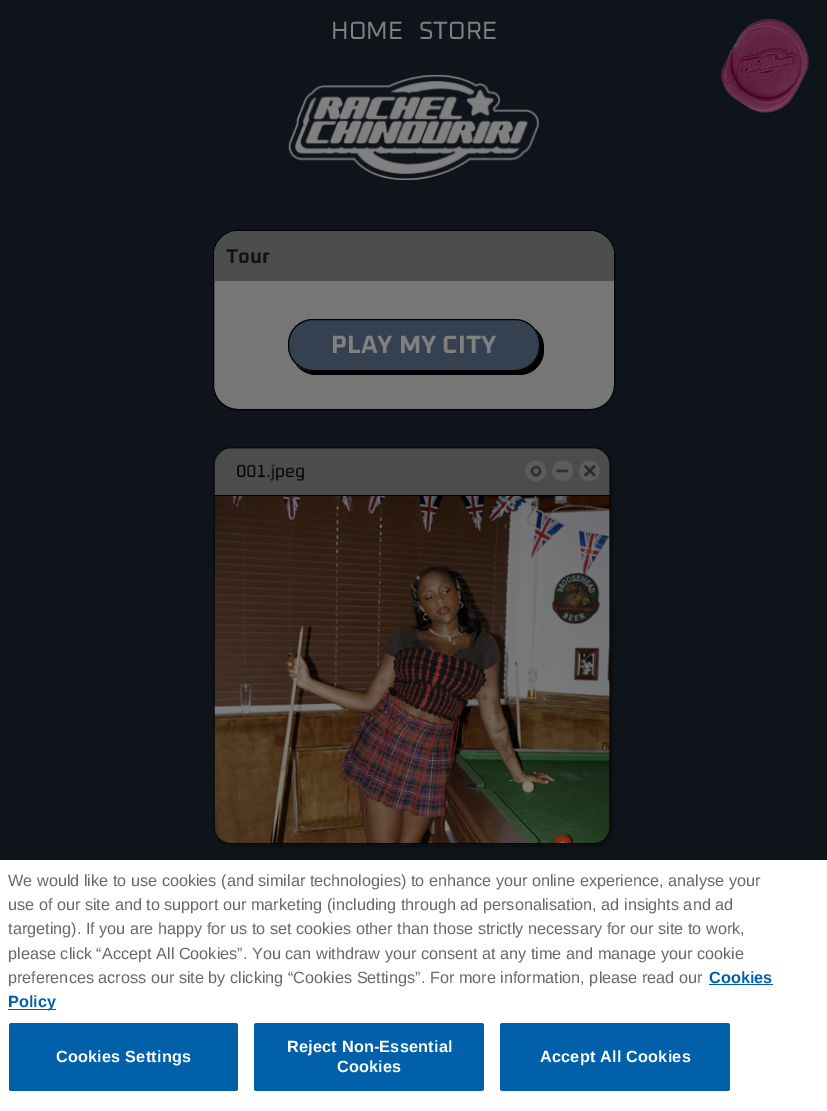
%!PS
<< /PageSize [827 1111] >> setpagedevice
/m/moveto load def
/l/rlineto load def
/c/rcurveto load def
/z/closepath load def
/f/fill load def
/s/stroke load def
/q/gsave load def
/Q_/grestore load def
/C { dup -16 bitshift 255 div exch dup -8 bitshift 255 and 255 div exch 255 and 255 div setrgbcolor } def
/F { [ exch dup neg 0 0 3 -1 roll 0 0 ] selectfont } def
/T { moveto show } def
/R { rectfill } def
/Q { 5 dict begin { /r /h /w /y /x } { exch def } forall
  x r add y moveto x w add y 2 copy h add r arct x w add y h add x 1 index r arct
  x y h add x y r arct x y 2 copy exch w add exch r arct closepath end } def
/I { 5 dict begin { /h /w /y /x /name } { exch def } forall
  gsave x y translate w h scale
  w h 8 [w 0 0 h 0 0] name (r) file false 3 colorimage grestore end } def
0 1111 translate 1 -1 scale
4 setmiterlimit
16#0F141A C
0 0 827 1111 R
/Oxanium-Regular 25 F
16#808080 C
(HOME) 331 39 T
(STORE) 419 39 T
(1.rgb) 721 18 88 95 I
(2.rgb) 288 75 251 105 I
16#767676 C
213.5 230.5 401 179 24.5 Q q f Q_
16#000000 C
s
16#4D4D4D C
239 231 m 350 0 l 14 0 25 11 25 25 c 0 25 l -400 0 l 0 -25 l 0 -14 11 -25 25 -25 c z f
/Oxanium-Bold 20 F
16#0F141A C
(Tour) 226 263 T
16#000000 C
296 365 m 5 6 12 10 20 10 c 203 0 l 14 0 25 -11 25 -25 c 0 -2 l 0 -8 -3 -15 -9 -19 c 3 4 5 9 5 15 c 0 2 l 0 14 -11 25 -25 25 c -203 0 l -6 0 -12 -2 -16 -6 c z f
16#354051 C
288.5 319.5 251 51 24.5 Q q f Q_
16#000000 C
s
/Oxanium-Bold 25 F
16#808080 C
(PLAY MY CITY) 331 353 T
(3.rgb) 213 447 401 401 I
16#FFFFFF C
0 860 827 251 R
/LiberationSans-Regular 16.25 F
16#696969 C
(We would like to use cookies \(and similar technologies\) to enhance your online experience, analyse your) 8 886 T
(use of our site and to support our marketing \(including through ad personalisation, ad insights and ad) 8 910 T
(targeting\). If you are happy for us to set cookies other than those strictly necessary for our site to work,) 8 934 T
(please click “Accept All Cookies”. You can withdraw your consent at any time and manage your cookie) 8 959 T
(preferences across our site by clicking “Cookies Settings”. For more information, please read our) 8 983 T
/LiberationSans-Bold 16.25 F
16#0061AA C
(Cookies) 709 983 T
709 984 64 1 R
8 1009 48 1 R
(Policy) 8 1007 T
9 1023 229 68 2.5 Q f
16#FFFFFF C
56 1062 m .2 0 (Cookies Settings) ashow
16#0061AA C
254 1023 230 68 2.5 Q f
16#FFFFFF C
287 1052 m .2 0 (Reject Non-Essential) ashow
337 1072 m .2 0 (Cookies) ashow
16#0061AA C
500 1023 230 68 2.5 Q f
16#FFFFFF C
540 1062 m .2 0 (Accept All Cookies) ashow
showpage
